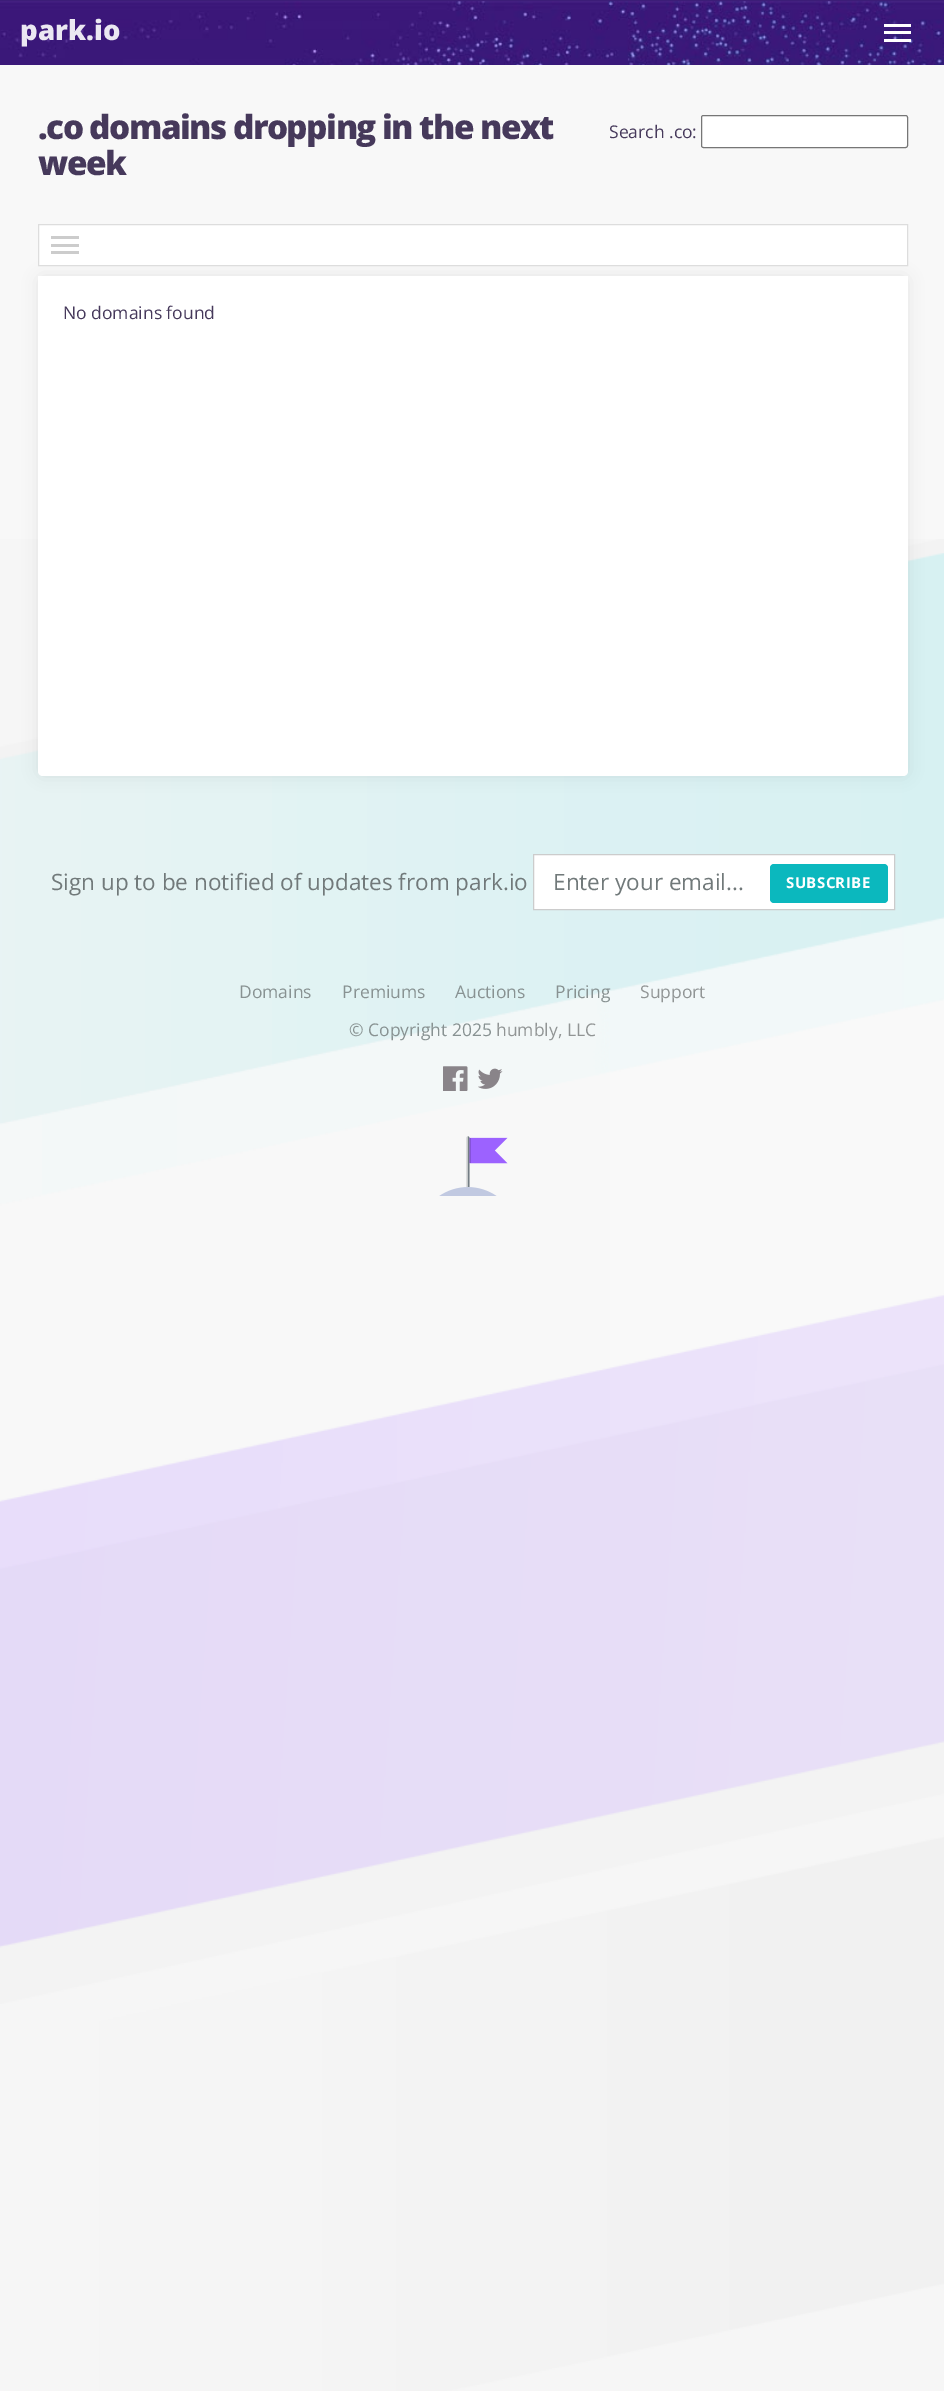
%!PS
<< /PageSize [944 2391] /PageUsesTransparency true >> setpagedevice
/m/moveto load def
/l/rlineto load def
/c/rcurveto load def
/z/closepath load def
/f/fill load def
/s/stroke load def
/q/gsave load def
/Q_/grestore load def
/C { dup -16 bitshift 255 div exch dup -8 bitshift 255 and 255 div exch 255 and 255 div setrgbcolor } def
/F { [ exch dup neg 0 0 3 -1 roll 0 0 ] selectfont } def
/T { moveto show } def
/R { rectfill } def
/A { dup .setfillconstantalpha .setstrokeconstantalpha } def
/Q { 5 dict begin { /r /h /w /y /x } { exch def } forall
  x r add y moveto x w add y 2 copy h add r arct x w add y h add x 1 index r arct
  x y h add x y r arct x y 2 copy exch w add exch r arct closepath end } def
/S { 12 dict begin { /a /b /q /h /w /y /x } { exch def } forall gsave /was 0 def
  9 -2 -9 { dup b mul 4 div /e exch def 1 sub .425 mul 2.718 exch exp 1 add a .99 .min exch div /now exch def
    1 1 now sub 1 was sub div sub A /was now def
    w h .min e 2 mul add 0 gt { x e sub y e sub w e 2 mul add h e 2 mul add
      q e add b .6 mul add w h .min 2 div e add .min 0 .max Q fill } if } for grestore end } def
/I { 5 dict begin { /h /w /y /x /name } { exch def } forall
  gsave x y translate w h scale
  w h 8 [w 0 0 h 0 0] name (r) file false 3 colorimage grestore end } def
0 .pushpdf14devicefilter
0 2391 translate 1 -1 scale
4 setmiterlimit
16#F8F8F8 C
0 0 944 2391 R
(1.rgb) 0 539 944 1852 I
16#3C1D78 C
0 0 944 2 R
(2.rgb) 0 1 944 64 I
/OpenSans-ExtraBold 27.5 F
16#EBE8F2 C
(park.io) 20 40 T
16#FFFFFF C
884 24 27 3 R
884 31 27 3 R
884 39 27 3 R
/OpenSans-ExtraBold 33.25 F
16#46395B C
38 139 m -1.5 0 (.co domains dropping in the next) ashow
38 175 m -1.5 0 (week) ashow
/OpenSans-Regular 17.5 F
(Search .co:) 609 138 T
16#FFFFFF C
701.5 115.5 206 32 2 Q q f Q_
16#767676 C
s
16#000000 C
38 276 870 500 5 7.5 .07 S
16#FFFFFF C
38.5 224.5 m 869 0 l 0 41 l -869 0 l z q f Q_
16#DDDDDD C
s
16#CCCCCC C
51 236 28 3 R
51 244 28 3 R
51 251 28 3 R
16#FFFFFF C
38 276 m 870 0 l 0 495 l 0 3 -2 5 -5 5 c -860 0 l -3 0 -5 -2 -5 -5 c z f
16#46395B C
(No domains found) 63 319 T
/OpenSans-Regular 22.5 F
16#71797A C
(Sign up to be notified of updates from park.io) 51 890 T
16#FFFFFF C
533.5 854.5 m 361 0 l 0 55 l -361 0 l z q f Q_
16#CCCCCC C
s
16#71797A C
(Enter your email...) 553 890 T
16#0BB8BE C
770 864 118 39 4 Q f
/OpenSans-Bold 15 F
16#FFFFFF C
786 888 m .4 0 (SUBSCRIBE) ashow
/OpenSans-Regular 17.5 F
16#889292 C
(Domains) 239 998 T
(Premiums) 342 998 T
(Auctions) 455 998 T
(Pricing) 555 998 T
16#919595 C
(Support) 640 998 T
16#889292 C
(© Copyright 2025) 349 1036 T
16#919595 C
(humbly, LLC) 496 1036 T
(3.rgb) 443 1066 25 25 I
(4.rgb) 478 1068 25 21 I
(5.rgb) 439 1136 69 60 I
.poppdf14devicefilter showpage
